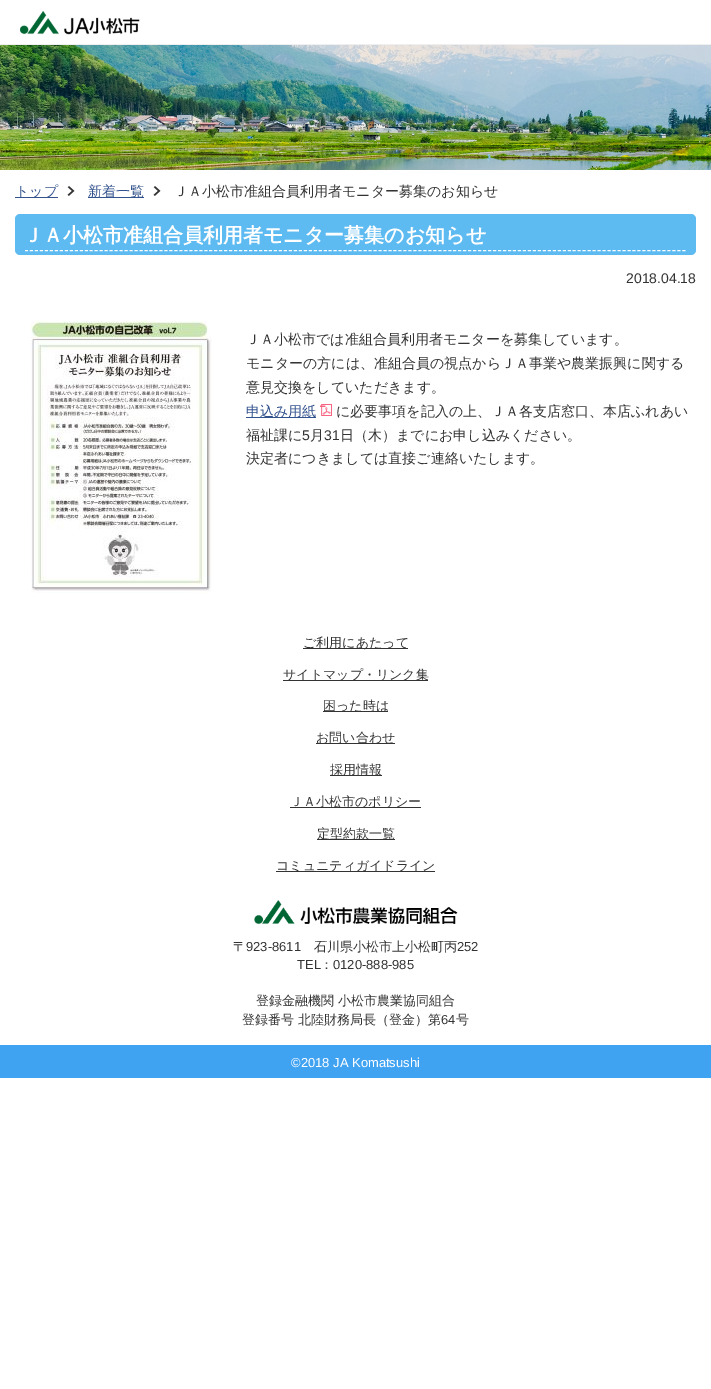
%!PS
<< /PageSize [711 1389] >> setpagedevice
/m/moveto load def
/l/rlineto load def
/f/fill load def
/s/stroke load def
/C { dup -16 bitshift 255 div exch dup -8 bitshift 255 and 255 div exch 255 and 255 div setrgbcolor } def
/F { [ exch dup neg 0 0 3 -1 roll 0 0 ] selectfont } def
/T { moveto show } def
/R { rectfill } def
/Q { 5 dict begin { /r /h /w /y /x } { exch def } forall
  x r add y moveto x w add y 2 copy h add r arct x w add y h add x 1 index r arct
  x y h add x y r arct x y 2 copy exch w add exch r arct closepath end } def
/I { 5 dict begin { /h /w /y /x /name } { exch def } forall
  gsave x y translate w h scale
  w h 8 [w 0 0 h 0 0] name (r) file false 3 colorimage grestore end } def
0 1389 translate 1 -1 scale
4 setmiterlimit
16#FFFFFF C
0 0 711 1389 R
16#EFEFEF C
0 44 711 1 R
(1.rgb) 20 11 120 24 I
(2.rgb) 0 45 711 125 I
16#32528D C
15 197 43 1 R
/WenQuanYiZenHei-Medium 14 F
(トップ) 15 196 T
(3.rgb) 67 186 8 10 I
88 197 56 1 R
(新着一覧) 88 196 T
(3.rgb) 153 186 8 10 I
16#333333 C
(ＪＡ小松市准組合員利用者モニター募集のお知らせ) 174 196 T
16#5EBBF1 C
15 214 681 41 5 Q f
/WenQuanYiZenHei-Bold 20 F
16#FFFFFF C
(ＪＡ小松市准組合員利用者モニター募集のお知らせ) 23 242 T
[3 1.98] 0 setdash
25 250.5 m 661 0 l s
/LiberationSans-Regular 14 F
16#333333 C
(2018.04.18) 626 283 T
(4.rgb) 30 320 182 273 I
/WenQuanYiZenHei-Medium 14 F
(ＪＡ小松市では准組合員利用者モニターを募集しています。) 246 344 T
(モニターの方には、准組合員の視点からＪＡ事業や農業振興に関する) 246 368 T
(意見交換をしていただきます。) 246 392 T
16#32528D C
246 417 70 1 R
(申込み用紙) 246 416 T
(5.rgb) 320 404 12 12 I
16#333333 C
(に必要事項を記入の上、ＪＡ各支店窓口、本店ふれあい) 336 416 T
(福祉課に) 246 440 T
/LiberationSans-Regular 14 F
(5) 302 440 T
/WenQuanYiZenHei-Medium 14 F
(月) 310 440 T
/LiberationSans-Regular 14 F
(31) 324 440 T
/WenQuanYiZenHei-Medium 14 F
(日（木）までにお申し込みください。) 340 440 T
(決定者につきましては直接ご連絡いたします。) 246 463 T
303 648 105 1 R
/WenQuanYiZenHei-Medium 13 F
(ご利用にあたって) 303 647 T
283 680 145 1 R
(サイトマップ・リンク集) 283 679 T
323 711 65 1 R
(困った時は) 323 710 T
316 743 79 1 R
(お問い合わせ) 316 742 T
330 775 52 1 R
(採用情報) 330 774 T
290 807 131 1 R
(ＪＡ小松市のポリシー) 290 806 T
317 839 78 1 R
(定型約款一覧) 317 838 T
276 871 159 1 R
(コミュニティガイドライン) 276 870 T
(6.rgb) 254 900 204 24 I
(〒) 233 951 T
/LiberationSans-Regular 13 F
(923-8611) 246 951 T
/WenQuanYiZenHei-Medium 13 F
(石川県小松市上小松町丙) 314 951 T
/LiberationSans-Regular 13 F
(252) 457 951 T
(TEL) 297 969 T
/WenQuanYiZenHei-Medium 13 F
(：) 320 969 T
/LiberationSans-Regular 13 F
(0120-888-985) 333 969 T
/WenQuanYiZenHei-Medium 13 F
(登録金融機関 小松市農業協同組合) 256 1005 T
(登録番号 北陸財務局長（登金）第) 242 1024 T
/LiberationSans-Regular 13 F
(64) 441 1024 T
/WenQuanYiZenHei-Medium 13 F
(号) 456 1024 T
16#40A3F2 C
0 1045 711 33 R
/LiberationSans-Regular 13 F
16#FFFFFF C
(©2018 JA Komatsushi) 291 1067 T
showpage
